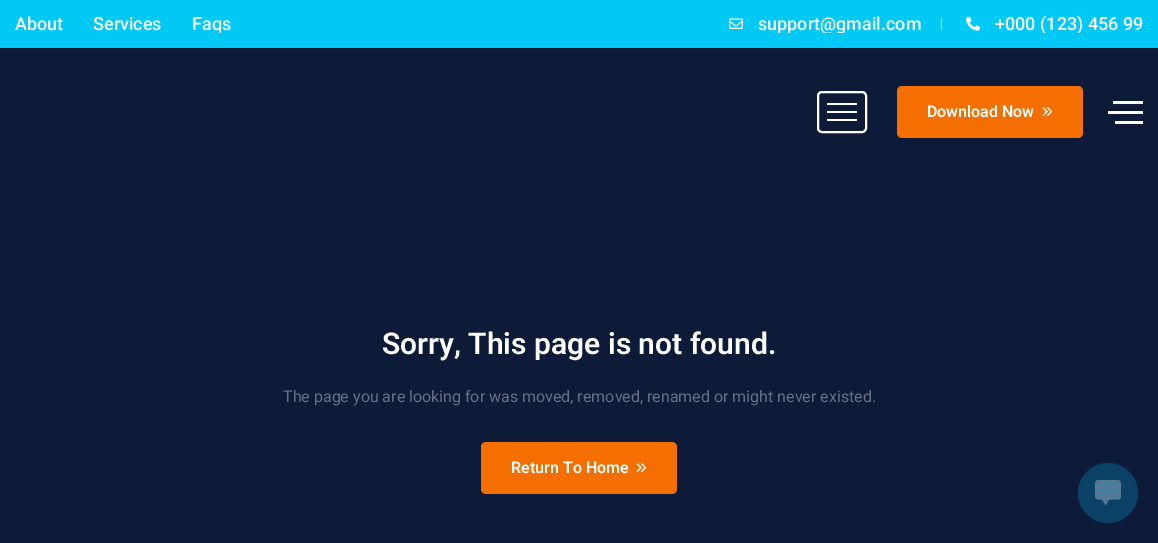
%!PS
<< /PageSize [1158 543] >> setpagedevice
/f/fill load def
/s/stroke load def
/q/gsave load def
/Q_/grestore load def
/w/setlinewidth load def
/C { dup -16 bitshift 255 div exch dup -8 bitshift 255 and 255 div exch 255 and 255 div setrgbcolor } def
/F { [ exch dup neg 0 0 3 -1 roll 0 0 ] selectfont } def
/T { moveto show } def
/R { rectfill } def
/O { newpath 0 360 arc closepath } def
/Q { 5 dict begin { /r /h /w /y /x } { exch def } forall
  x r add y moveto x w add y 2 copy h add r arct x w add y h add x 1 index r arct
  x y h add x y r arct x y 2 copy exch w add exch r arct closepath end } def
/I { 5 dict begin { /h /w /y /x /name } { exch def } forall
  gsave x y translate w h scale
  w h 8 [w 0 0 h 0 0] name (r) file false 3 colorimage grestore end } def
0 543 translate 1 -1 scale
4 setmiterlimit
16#0E1B38 C
0 0 1158 543 R
16#01C9F5 C
0 0 1158 48 R
/Roboto-Medium 18 F
16#FFFFFF C
(About) 15 30 T
(Services) 93 30 T
q
15 15 549 18 rectclip
(Faqs) 192 30 T
Q_
(1.rgb) 729 18 14 11 I
q
594 15 549 18 rectclip
(support@gmail.com) 758 30 T
Q_
941 18 1 12 R
(2.rgb) 966 16 14 15 I
q
594 15 549 18 rectclip
(+000 \(123\) 456 99) 995 30 T
Q_
2 w
818 92 48 40 4 Q s
827 103 30 2 R
827 111 30 2 R
827 119 30 2 R
16#F46E00 C
897 86 186 52 5 Q f
/Roboto-SemiBold 16 F
16#FFFFFF C
(Download Now) 927 117 T
(3.rgb) 1042 107 11 10 I
1113 101 30 3 R
1108 111 35 3 R
1115 121 28 3 R
/Roboto-SemiBold 30 F
(Sorry, This page is not found.) 382 354 T
/Roboto-Regular 16 F
16#696E82 C
(The page you are looking for was moved, removed, renamed or might never existed.) 283 402 T
16#F46E00 C
481 442 196 52 5 Q f
/Roboto-SemiBold 16 F
16#FFFFFF C
(Return To Home) 511 473 T
(3.rgb) 636 463 11 10 I
16#0B4067 C
1108 493 30 O f
(4.rgb) 1095 480 26 26 I
showpage
